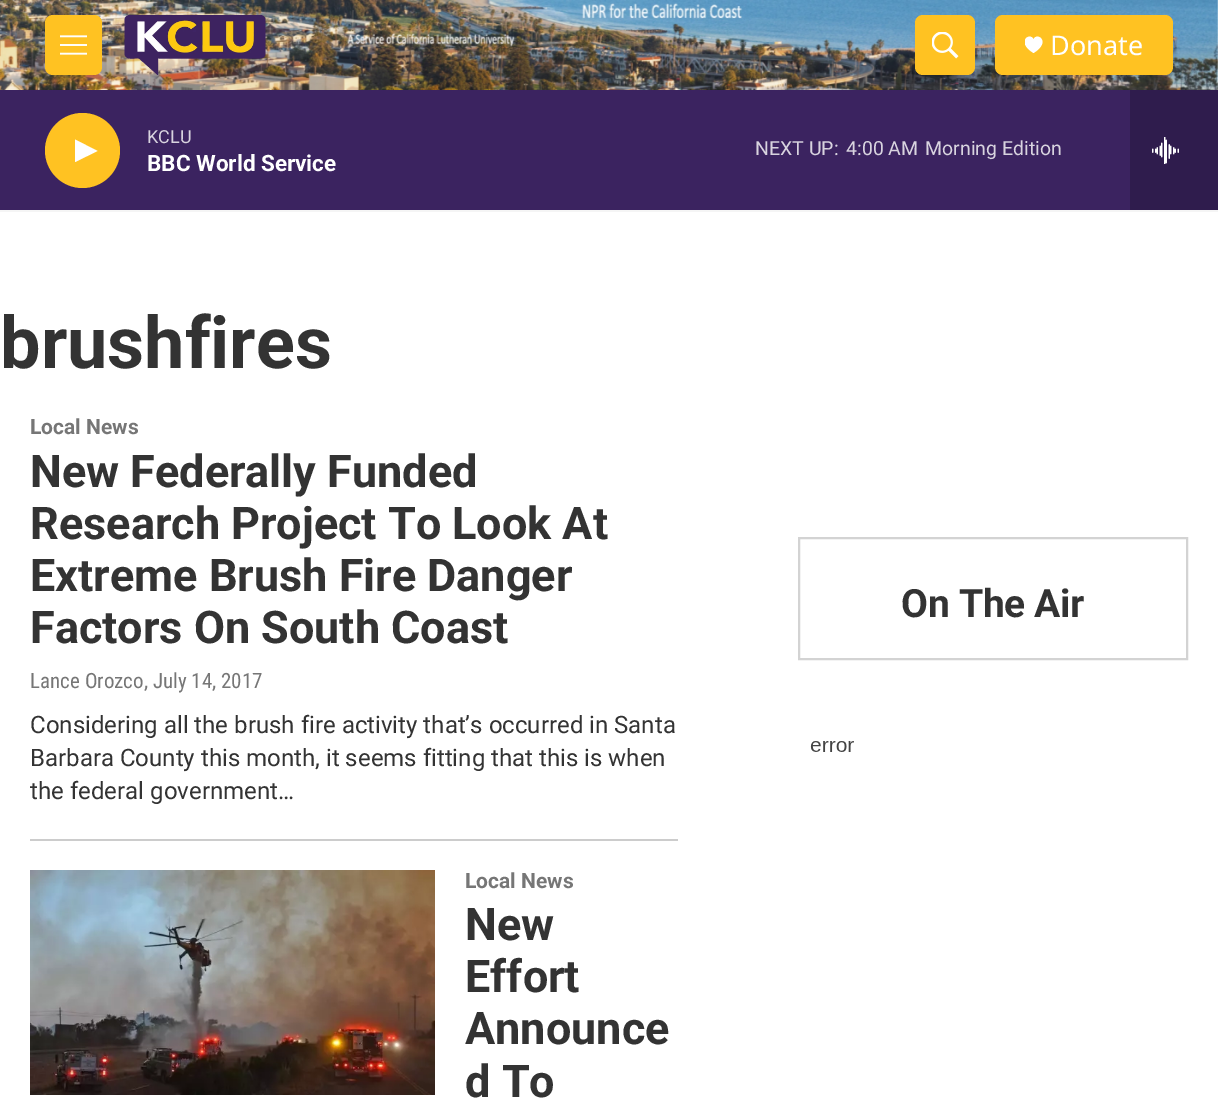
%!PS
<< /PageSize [1218 1102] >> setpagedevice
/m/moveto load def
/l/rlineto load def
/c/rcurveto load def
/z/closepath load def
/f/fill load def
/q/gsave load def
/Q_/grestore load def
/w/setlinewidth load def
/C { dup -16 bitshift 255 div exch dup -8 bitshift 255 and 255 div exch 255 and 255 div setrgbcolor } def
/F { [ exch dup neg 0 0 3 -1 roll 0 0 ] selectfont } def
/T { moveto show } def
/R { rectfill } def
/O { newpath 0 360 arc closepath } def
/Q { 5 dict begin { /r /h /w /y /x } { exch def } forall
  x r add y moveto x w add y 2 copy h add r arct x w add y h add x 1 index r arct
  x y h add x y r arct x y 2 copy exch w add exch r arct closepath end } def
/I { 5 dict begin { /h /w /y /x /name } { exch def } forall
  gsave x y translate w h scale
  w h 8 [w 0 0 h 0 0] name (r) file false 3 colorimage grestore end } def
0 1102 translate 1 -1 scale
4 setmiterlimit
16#FFFFFF C
0 0 1218 1102 R
16#F5F5F5 C
0 210 1218 2 R
(1.rgb) 0 0 1218 90 I
16#FFC222 C
45 15 57 60 8 Q f
(2.rgb) 60 35 27 20 I
(3.rgb) 124 15 142 60 I
915 15 60 60 8 Q f
(4.rgb) 932 32 27 27 I
995 15 178 60 8 Q f
q
1025 36 18 18 rectclip
16#FFFFFF C
1033.5 39.5 m -3 -8 -18.5 2 0 13.5 c 18.5 -11.5 3 -21.5 0 -13.5 c z f
Q_
/NotoSans-Regular 27 F
16#FFFFFF C
(Donate) 1050 55 T
16#3B2360 C
0 90 1130 120 R
16#FFC222 C
82.5 150.5 37.5 O f
16#FFFFFF C
75 139.5 m 22.5 11.5 l -22.5 11 l z f
/Roboto-Regular 18 F
16#D8D3DF C
(KCLU) 147 143 T
/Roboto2-Bold 22.5 F
16#FFFFFF C
(BBC World Service) 147 171 T
/Roboto-Regular 19.5 F
16#D8D3DF C
(NEXT UP:) 755 155 T
(4:00 AM) 846 155 T
(Morning Edition) 925 155 T
16#2F1C4D C
1130 90 88 120 R
(5.rgb) 1152 137 27 27 I
/Roboto-Bold 72 F
16#333333 C
(brushfires) 0 368 T
16#CCCCCC C
30 839 648 2 R
/Roboto-Bold 21 F
16#767676 C
(Local News) 30 434 T
/Roboto-Bold 45 F
16#333333 C
(New Federally Funded) 30 487 T
(Research Project To Look At) 30 539 T
(Extreme Brush Fire Danger) 30 591 T
(Factors On South Coast) 30 643 T
/RobotoCondensed-Regular 21 F
16#767676 C
(Lance Orozco, July 14, 2017) 30 688 T
/Roboto-Regular 24 F
16#333333 C
(Considering all the brush fire activity that’s occurred in Santa) 30 733 T
(Barbara County this month, it seems fitting that this is when) 30 766 T
(the federal government…) 30 799 T
(6.rgb) 30 870 405 225 I
/Roboto-Bold 21 F
16#767676 C
(Local News) 465 888 T
/Roboto-Bold 45 F
16#333333 C
(New) 465 940 T
(Effort) 465 992 T
(Announce) 465 1044 T
(d To) 465 1097 T
16#D3D3D3 C
2 w
799 538 388 121 rectstroke
/Roboto-Bold 39 F
16#333333 C
901 617 m -.25 0 (On The Air) ashow
(7.rgb) 810 741 44 11 I
showpage
